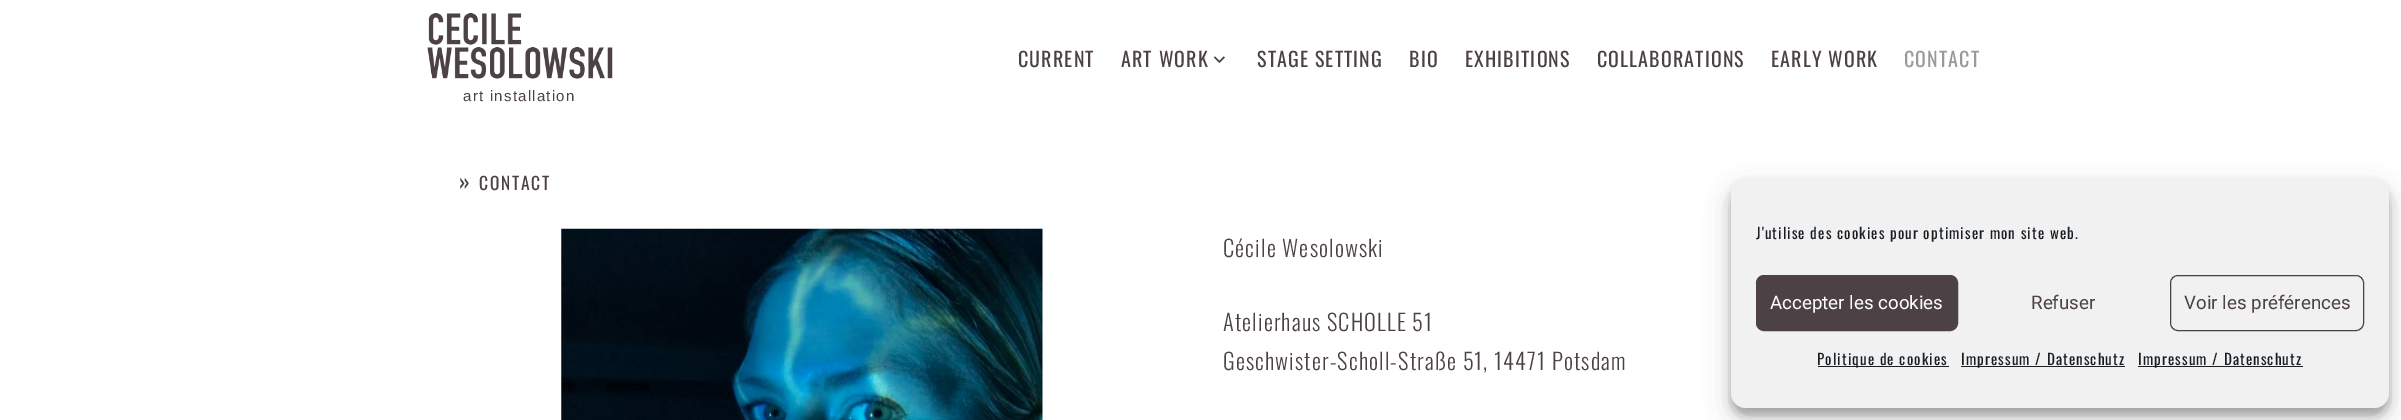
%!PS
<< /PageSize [2401 420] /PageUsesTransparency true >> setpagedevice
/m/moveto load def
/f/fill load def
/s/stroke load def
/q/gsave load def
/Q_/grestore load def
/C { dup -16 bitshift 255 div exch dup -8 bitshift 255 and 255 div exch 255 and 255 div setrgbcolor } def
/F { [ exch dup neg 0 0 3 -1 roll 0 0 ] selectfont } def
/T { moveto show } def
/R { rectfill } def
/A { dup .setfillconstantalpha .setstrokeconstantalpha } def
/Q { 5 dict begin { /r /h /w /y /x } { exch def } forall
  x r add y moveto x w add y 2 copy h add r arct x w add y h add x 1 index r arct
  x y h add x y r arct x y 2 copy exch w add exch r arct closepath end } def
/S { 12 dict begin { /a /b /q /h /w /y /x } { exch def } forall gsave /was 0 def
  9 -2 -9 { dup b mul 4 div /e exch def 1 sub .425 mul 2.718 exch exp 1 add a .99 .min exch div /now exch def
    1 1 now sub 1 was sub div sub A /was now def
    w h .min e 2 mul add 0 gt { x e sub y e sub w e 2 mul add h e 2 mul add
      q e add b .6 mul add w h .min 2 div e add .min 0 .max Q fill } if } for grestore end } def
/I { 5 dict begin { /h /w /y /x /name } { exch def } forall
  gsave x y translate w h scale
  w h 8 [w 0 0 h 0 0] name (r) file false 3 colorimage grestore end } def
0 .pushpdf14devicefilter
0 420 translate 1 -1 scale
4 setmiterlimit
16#FFFFFF C
0 0 2401 420 R
/Oswald-Regular 20 F
16#4C4145 C
1018 67 m 1.12 0 (CURRENT) ashow
1121 67 m 1.12 0 (ART WORK) ashow
(1.rgb) 1213 56 12 7 I
1257 67 m 1.12 0 (STAGE SETTING) ashow
1409 67 m 1.12 0 (BIO) ashow
1465 67 m 1.12 0 (EXHIBITIONS) ashow
1597 67 m 1.12 0 (COLLABORATIONS) ashow
1771 67 m 1.12 0 (EARLY WORK) ashow
16#999999 C
1904 67 m 1.12 0 (CONTACT) ashow
(2.rgb) 427 13 186 66 I
/LiberationSans-Regular 15 F
16#4C4145 C
463 101 m 1.25 0 (art installation) ashow
/Oswald-Regular 22.5 F
459 190 m 1.75 0 (») ashow
/Oswald-Regular 17.5 F
479 190 m 1.75 0 (CONTACT) ashow
(3.rgb) 561 228 482 192 I
/Oswald-Light 22.5 F
1223 257 m 1.12 0 (Cécile Wesolowski) ashow
1223 331 m 1.12 0 (Atelierhaus SCHOLLE 51) ashow
1223 370 m 1.12 0 (Geschwister-Scholl-Straße 51, 14471 Potsdam) ashow
16#000000 C
1731 185 658 230 15 4 .23 S
1731 190 658 230 15 12.5 .19 S
16#F1F1F1 C
1731 178 658 230 15 Q f
/Oswald-Regular 15 F
16#191E23 C
1756 239 m 1.12 0 (J'utilise des cookies pour optimiser mon site web.) ashow
16#4C4145 C
1756.5 275.5 201 55 7.5 Q q f Q_
s
/Roboto-Regular 18.75 F
16#FFFFFF C
(Accepter les cookies) 1770 309 T
16#4C4145 C
(Refuser) 2031 309 T
2170.5 275.5 193 55 7.5 Q s
(Voir les préférences) 2184 309 T
16#191E23 C
1818 366 131 1 R
/Oswald-Regular 15 F
1817 365 m 1.12 0 (Politique de cookies) ashow
1961 366 164 1 R
1961 365 m 1.12 0 (Impressum / Datenschutz) ashow
2138 366 165 1 R
2138 365 m 1.12 0 (Impressum / Datenschutz) ashow
.poppdf14devicefilter showpage
